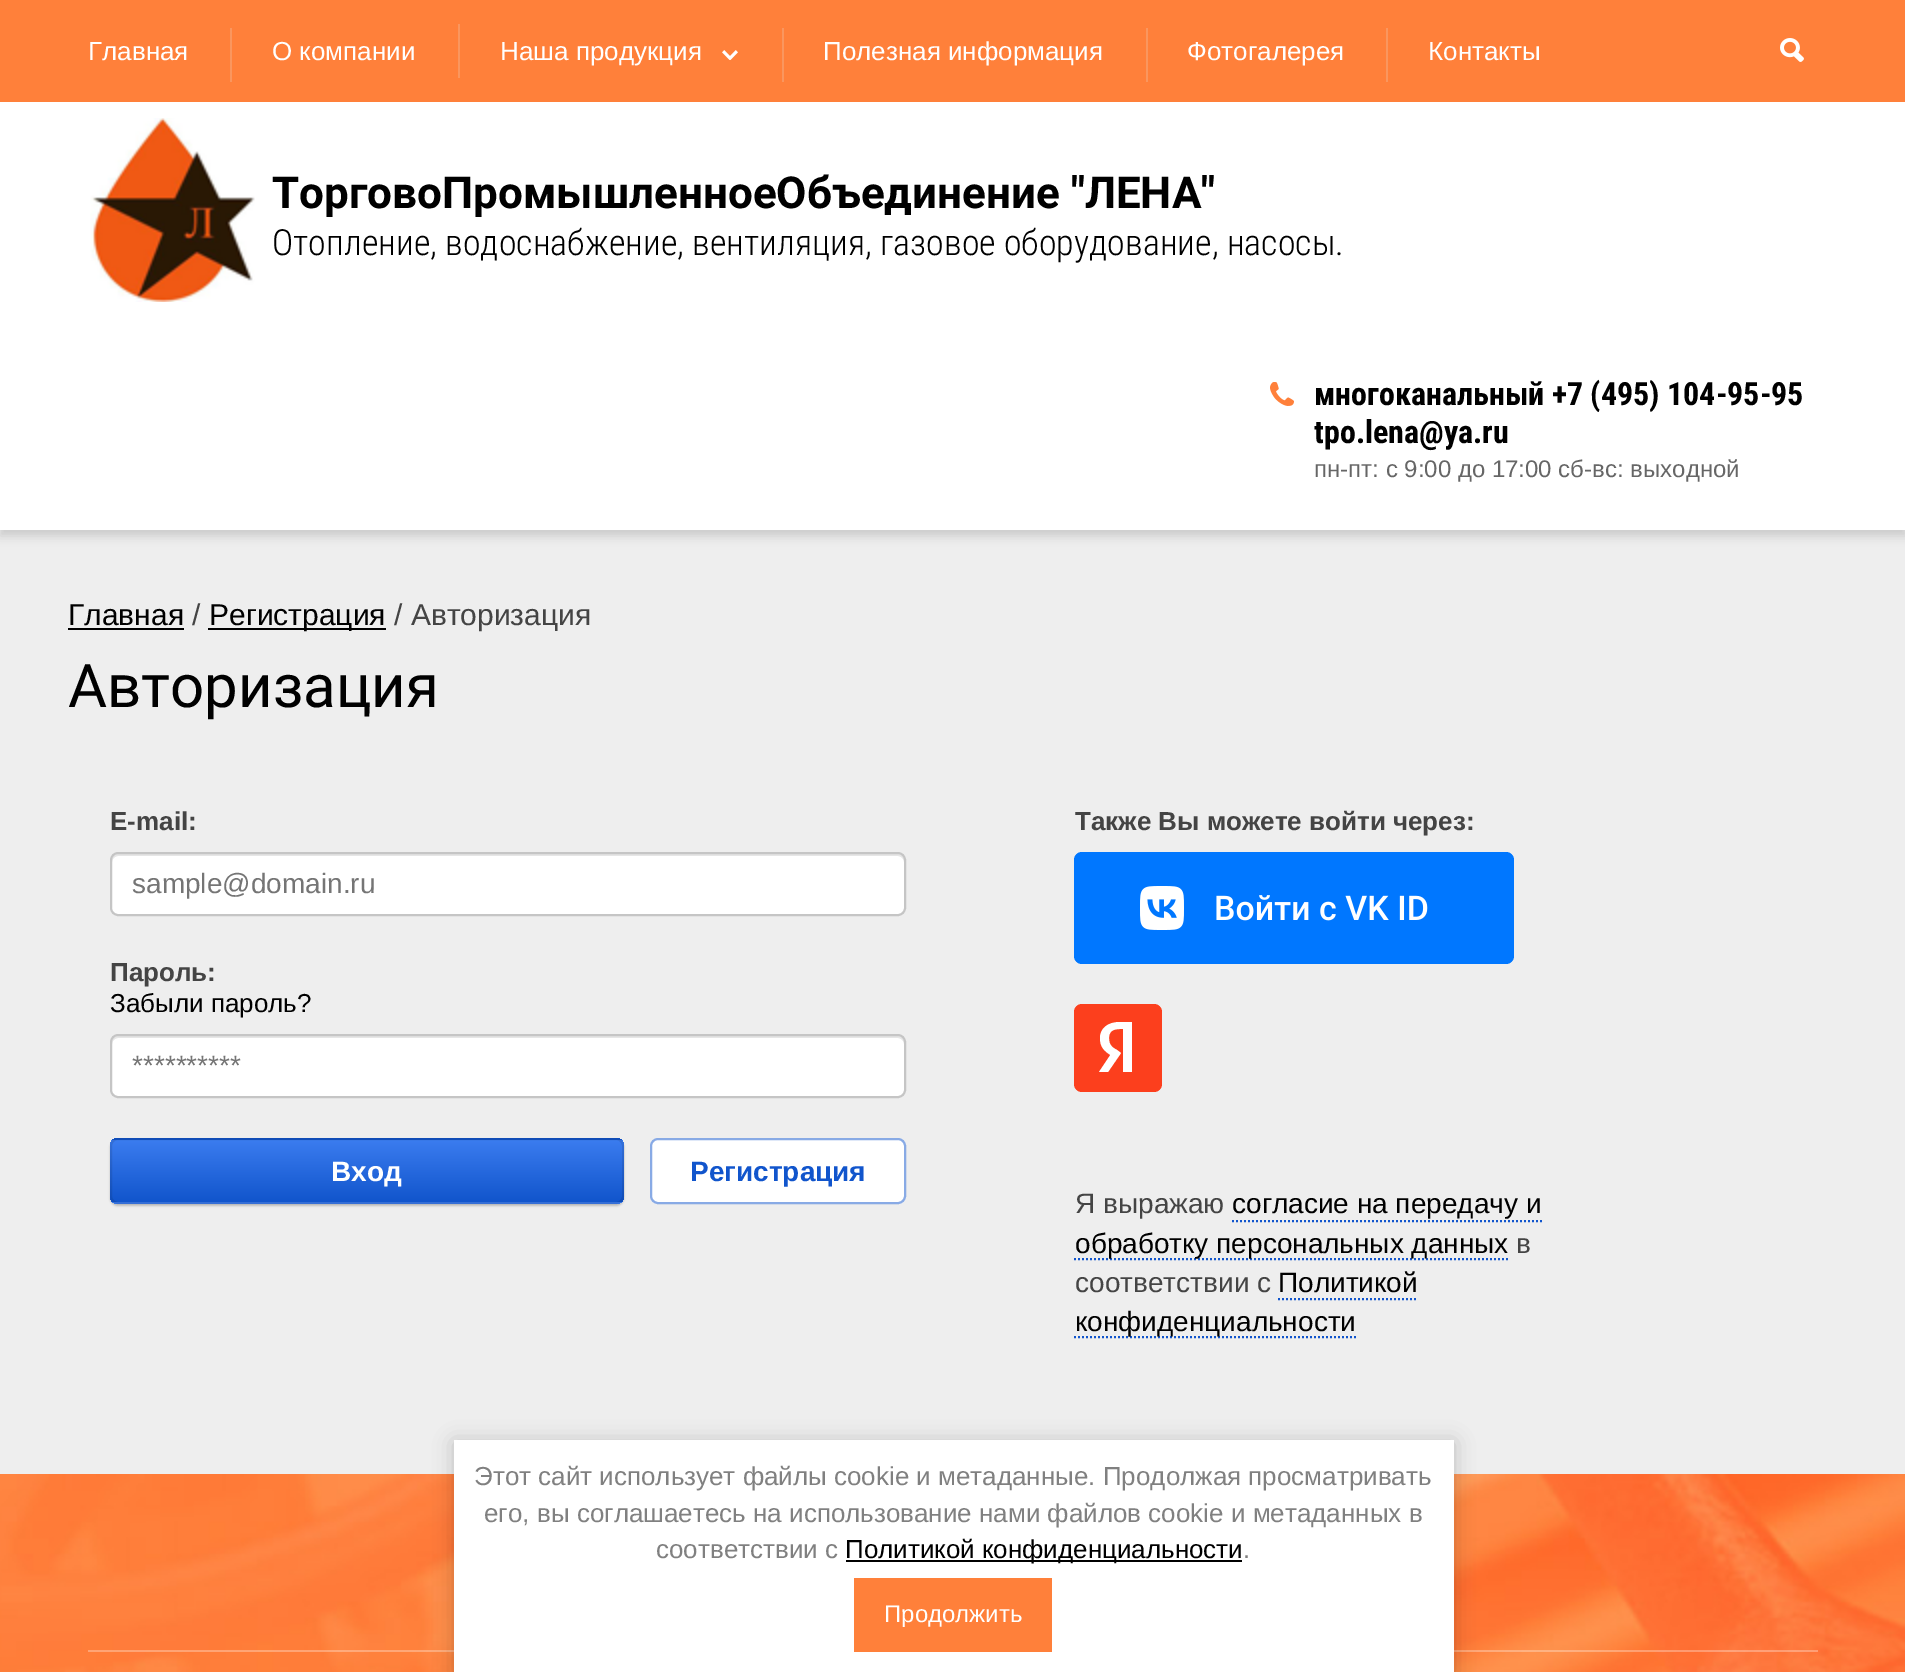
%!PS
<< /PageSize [1905 1672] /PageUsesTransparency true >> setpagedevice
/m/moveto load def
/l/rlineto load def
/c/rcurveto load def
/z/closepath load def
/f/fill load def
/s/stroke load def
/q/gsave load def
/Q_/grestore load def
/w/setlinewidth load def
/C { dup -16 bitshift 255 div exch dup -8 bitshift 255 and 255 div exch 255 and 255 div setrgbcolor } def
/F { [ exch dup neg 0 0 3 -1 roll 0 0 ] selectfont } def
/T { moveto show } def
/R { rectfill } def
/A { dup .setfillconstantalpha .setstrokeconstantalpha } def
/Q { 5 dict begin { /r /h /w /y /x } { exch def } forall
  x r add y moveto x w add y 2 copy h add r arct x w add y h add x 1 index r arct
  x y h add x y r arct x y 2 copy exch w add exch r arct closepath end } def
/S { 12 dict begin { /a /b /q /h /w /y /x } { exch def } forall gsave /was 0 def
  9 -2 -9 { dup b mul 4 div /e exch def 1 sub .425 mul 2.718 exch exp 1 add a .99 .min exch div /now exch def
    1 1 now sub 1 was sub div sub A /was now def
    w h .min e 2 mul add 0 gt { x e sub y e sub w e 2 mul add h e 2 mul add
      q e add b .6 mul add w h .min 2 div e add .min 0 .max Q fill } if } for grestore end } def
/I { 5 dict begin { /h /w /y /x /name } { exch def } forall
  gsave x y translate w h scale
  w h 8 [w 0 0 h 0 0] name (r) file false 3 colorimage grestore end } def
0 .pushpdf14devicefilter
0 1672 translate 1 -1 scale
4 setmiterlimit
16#EEEEEE C
0 0 1905 1672 R
16#000000 C
0 6 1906 530 0 5 .15 S
16#FFFFFF C
0 102 1905 428 R
16#FF803A C
0 0 1905 102 R
/LiberationSans-Regular 26 F
16#FFFFFF C
(Главная) 88 60 T
16#FA965E C
230 28 2 54 R
16#FFFFFF C
(О компании) 272 60 T
16#FA965E C
458 24 2 54 R
16#FFFFFF C
(Наша продукция) 500 60 T
(1.rgb) 722 50 16 10 I
16#FA965E C
782 28 2 54 R
16#FFFFFF C
(Полезная информация) 823 60 T
16#FA965E C
1146 28 2 54 R
16#FFFFFF C
(Фотогалерея) 1187 60 T
16#FA965E C
1386 28 2 54 R
16#FFFFFF C
(Контакты) 1428 60 T
(2.rgb) 1780 38 24 24 I
(3.rgb) 90 118 165 184 I
/Roboto-Bold 44 F
16#000000 C
(ТорговоПромышленноеОбъединение "ЛЕНА") 272 208 T
/RobotoCondensed-Light 36 F
(Отопление, водоснабжение, вентиляция, газовое оборудование, насосы.) 272 255 T
(4.rgb) 1270 382 24 24 I
/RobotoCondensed-Bold 32 F
(многоканальный +7 \(495\) 104-95-95) 1314 405 T
(tpo.lena@ya.ru) 1314 443 T
/LiberationSans-Regular 24 F
16#666666 C
(пн-пт: с 9:00 до 17:00 сб-вс: выходной) 1314 477 T
/LiberationSans-Regular 30 F
16#000000 C
(Главная) 68 625 T
68 628 116 2 R
16#444444 C
(/) 192 625 T
16#000000 C
208 628 178 2 R
(Регистрация) 209 625 T
16#444444 C
(/ Авторизация) 394 625 T
/Roboto-Regular 60 F
16#000000 C
(Авторизация) 68 707 T
/LiberationSans-Bold 26 F
16#444444 C
(E-mail:) 110 830 T
16#FFFFFF C
110 852 796 64 8 Q f
16#E6E6E6 C
118 856 m 780 0 l 3 0 6 3 6 6 c 0 -2 l 0 -3 -3 -6 -6 -6 c -780 0 l -3 0 -6 3 -6 6 c 0 2 l 0 -3 3 -6 6 -6 c z f
16#C5C5C5 C
2 w
111 853 794 62 7 Q s
/LiberationSans-Regular 28 F
16#757575 C
(sample@domain.ru) 132 893 T
/LiberationSans-Bold 26 F
16#444444 C
(Пароль:) 110 981 T
/LiberationSans-Regular 26 F
16#000000 C
(Забыли пароль?) 110 1012 T
16#FFFFFF C
110 1034 796 64 8 Q f
16#E6E6E6 C
118 1038 m 780 0 l 3 0 6 3 6 6 c 0 -2 l 0 -3 -3 -6 -6 -6 c -780 0 l -3 0 -6 3 -6 6 c 0 2 l 0 -3 3 -6 6 -6 c z f
16#C5C5C5 C
111 1035 794 62 7 Q s
/LiberationSans-Regular 28 F
16#757575 C
(**********) 132 1075 T
16#000000 C
110 1140 514 66 8 1 .2 S
q
110 1138 514 66 8 Q clip newpath
q 110 1138 m 514 0 l 0 2 l -514 0 l z clip newpath
<< /ShadingType 2 /ColorSpace /DeviceRGB /Coords [367 1078 367 1140] /Extend [true true] /Function << /FunctionType 2 /Domain [0 1] /C0 [.231 .486 .937] /C1 [.067 .333 .8] /N 1 >> >> shfill Q_
q 110 1140 m 514 0 l 0 62 l -514 0 l z clip newpath
<< /ShadingType 2 /ColorSpace /DeviceRGB /Coords [367 1140 367 1202] /Extend [true true] /Function << /FunctionType 2 /Domain [0 1] /C0 [.231 .486 .937] /C1 [.067 .333 .8] /N 1 >> >> shfill Q_
q 110 1202 m 514 0 l 0 2 l -514 0 l z clip newpath
<< /ShadingType 2 /ColorSpace /DeviceRGB /Coords [367 1202 367 1264] /Extend [true true] /Function << /FunctionType 2 /Domain [0 1] /C0 [.231 .486 .937] /C1 [.067 .333 .8] /N 1 >> >> shfill Q_
Q_
0.1 A
111 1139 512 64 7 Q s
/LiberationSans-Bold 28 F
1 A
16#FFFFFF C
(Вход) 331 1181 T
650 1138 256 66 8 Q f
0.5 A
16#1155CC C
651 1139 254 64 7 Q s
1 A
(Регистрация) 690 1181 T
/LiberationSans-Bold 26 F
16#444444 C
(Также Вы можете войти через:) 1075 830 T
16#0077FF C
1074 852 440 112 8 Q f
(5.rgb) 1140 886 288 44 I
16#FC3F1D C
1074 1004 88 88 8 Q f
16#FFFFFF C
1123 1072 m 9 0 l 0 -50 l -12 0 l -13 0 -20 7 -20 16 c 0 9 4 13 12 18 c 5 3 l -6 -5 l -12 18 l 9 0 l 13 -19 l -4 -3 l -6 -3 -8 -6 -8 -12 c 0 -6 3 -9 11 -9 c 3 0 l z f
/LiberationSans-Regular 28 F
16#444444 C
(Я выражаю) 1075 1213 T
16#000000 C
(согласие на передачу и) 1232 1213 T
16#1155CC C
[2 2] 0 setdash
1232 1221 m 310 0 l s
1074 1259 m 434 0 l s
16#000000 C
(обработку персональных данных) 1075 1253 T
16#444444 C
(в) 1516 1253 T
(соответствии с) 1075 1292 T
16#000000 C
(Политикой) 1278 1292 T
16#1155CC C
1278 1299 m 140 0 l s
1074 1337 m 282 0 l s
16#000000 C
(конфиденциальности) 1075 1331 T
(6.rgb) 0 1474 1905 198 I
0.3 A
16#FFFFFF C
88 1650 1730 2 R
1 A
16#000000 C
454 1442 1000 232 0 10 .2 S
16#FFFFFF C
454 1440 1000 232 R
/LiberationSans-Regular 26 F
16#808080 C
(Этот сайт использует файлы cookie и метаданные. Продолжая просматривать) 474 1485 T
(его, вы соглашаетесь на использование нами файлов cookie и метаданных в) 484 1522 T
(соответствии с) 656 1558 T
16#000000 C
846 1560 396 2 R
(Политикой конфиденциальности) 845 1558 T
16#808080 C
(.) 1243 1558 T
16#FF803A C
854 1578 198 74 R
/LiberationSans-Regular 24 F
16#FFFFFF C
(Продолжить) 884 1622 T
.poppdf14devicefilter showpage
